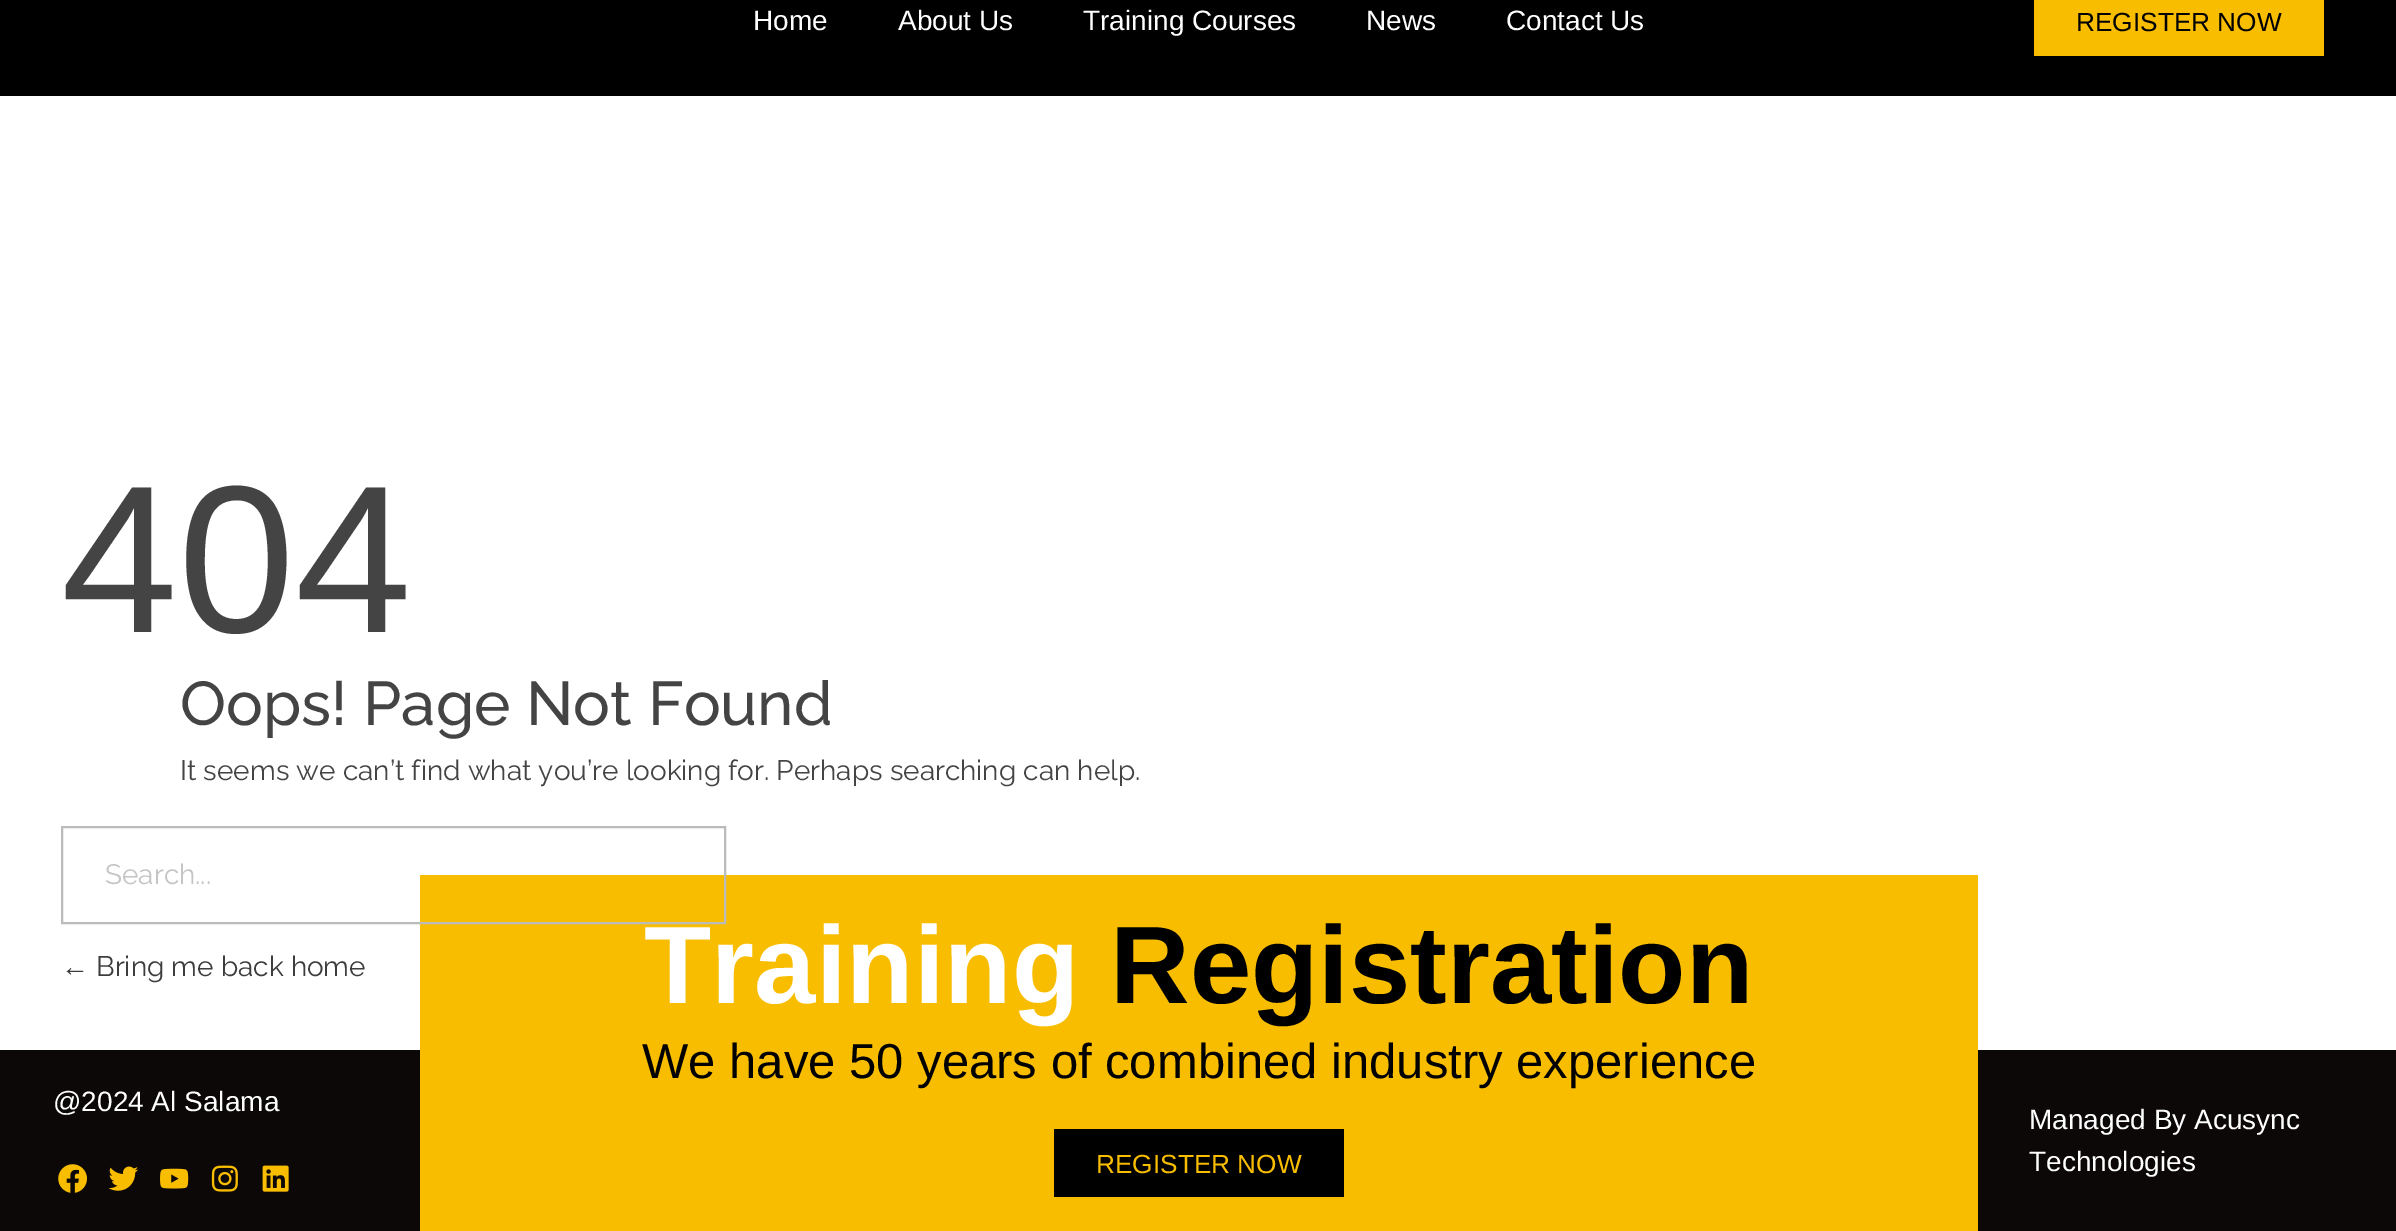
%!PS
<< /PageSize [2396 1231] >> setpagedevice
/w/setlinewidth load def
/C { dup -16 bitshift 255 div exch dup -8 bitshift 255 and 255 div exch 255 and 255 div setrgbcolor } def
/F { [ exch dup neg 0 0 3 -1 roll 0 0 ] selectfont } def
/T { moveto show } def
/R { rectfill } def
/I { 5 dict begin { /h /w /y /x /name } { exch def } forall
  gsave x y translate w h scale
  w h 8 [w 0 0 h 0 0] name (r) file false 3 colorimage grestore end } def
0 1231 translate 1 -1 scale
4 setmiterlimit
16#FFFFFF C
0 0 2396 1231 R
16#000000 C
0 0 2396 96 R
/LiberationSans-Regular 28 F
16#FFFFFF C
(Home) 753 30 T
(About Us) 898 30 T
(Training Courses) 1083 30 T
(News) 1366 30 T
(Contact Us) 1506 30 T
16#F9BD00 C
2034 0 290 56 R
/LiberationSans-Regular 26.25 F
16#000000 C
(REGISTER NOW) 2076 31 T
/LiberationSans-Regular 210 F
16#444444 C
(404) 61 632 T
/Raleway-Medium 61.6 F
(Oops! Page Not Found) 180 725 T
/Raleway-Regular 28 F
(It seems we can’t find what you’re looking for. Perhaps searching can help.) 180 780 T
16#0C0808 C
0 1050 2396 181 R
16#F9BD00 C
420 875 1558 356 R
/LiberationSans-Bold 110.25 F
16#FFFFFF C
(Training) 644 1003 T
16#BBBBBB C
2 w
62 827 663 96 rectstroke
/Raleway-Regular 28 F
16#C5C5C5 C
(Search...) 105 884 T
/LiberationSans-Regular 28 F
16#3D3D3D C
(←) 61 976 T
/Raleway-Regular 28 F
(Bring me back home) 96 976 T
/LiberationSans-Regular 28 F
16#FFFFFF C
(@2024 Al Salama) 53 1111 T
(1.rgb) 58 1164 29 29 I
(2.rgb) 109 1166 29 25 I
(3.rgb) 160 1168 29 21 I
(4.rgb) 211 1165 27 27 I
(5.rgb) 262 1165 27 27 I
/LiberationSans-Bold 110.25 F
16#000000 C
(Registration) 1110 1003 T
/LiberationSans-Regular 49 F
(We have 50 years of combined industry experience) 642 1078 T
1054 1129 290 68 R
/LiberationSans-Regular 26.25 F
16#F9BD00 C
(REGISTER NOW) 1096 1173 T
/LiberationSans-Regular 28 F
16#FFFFFF C
(Managed By Acusync) 2029 1129 T
(Technologies) 2029 1171 T
showpage
